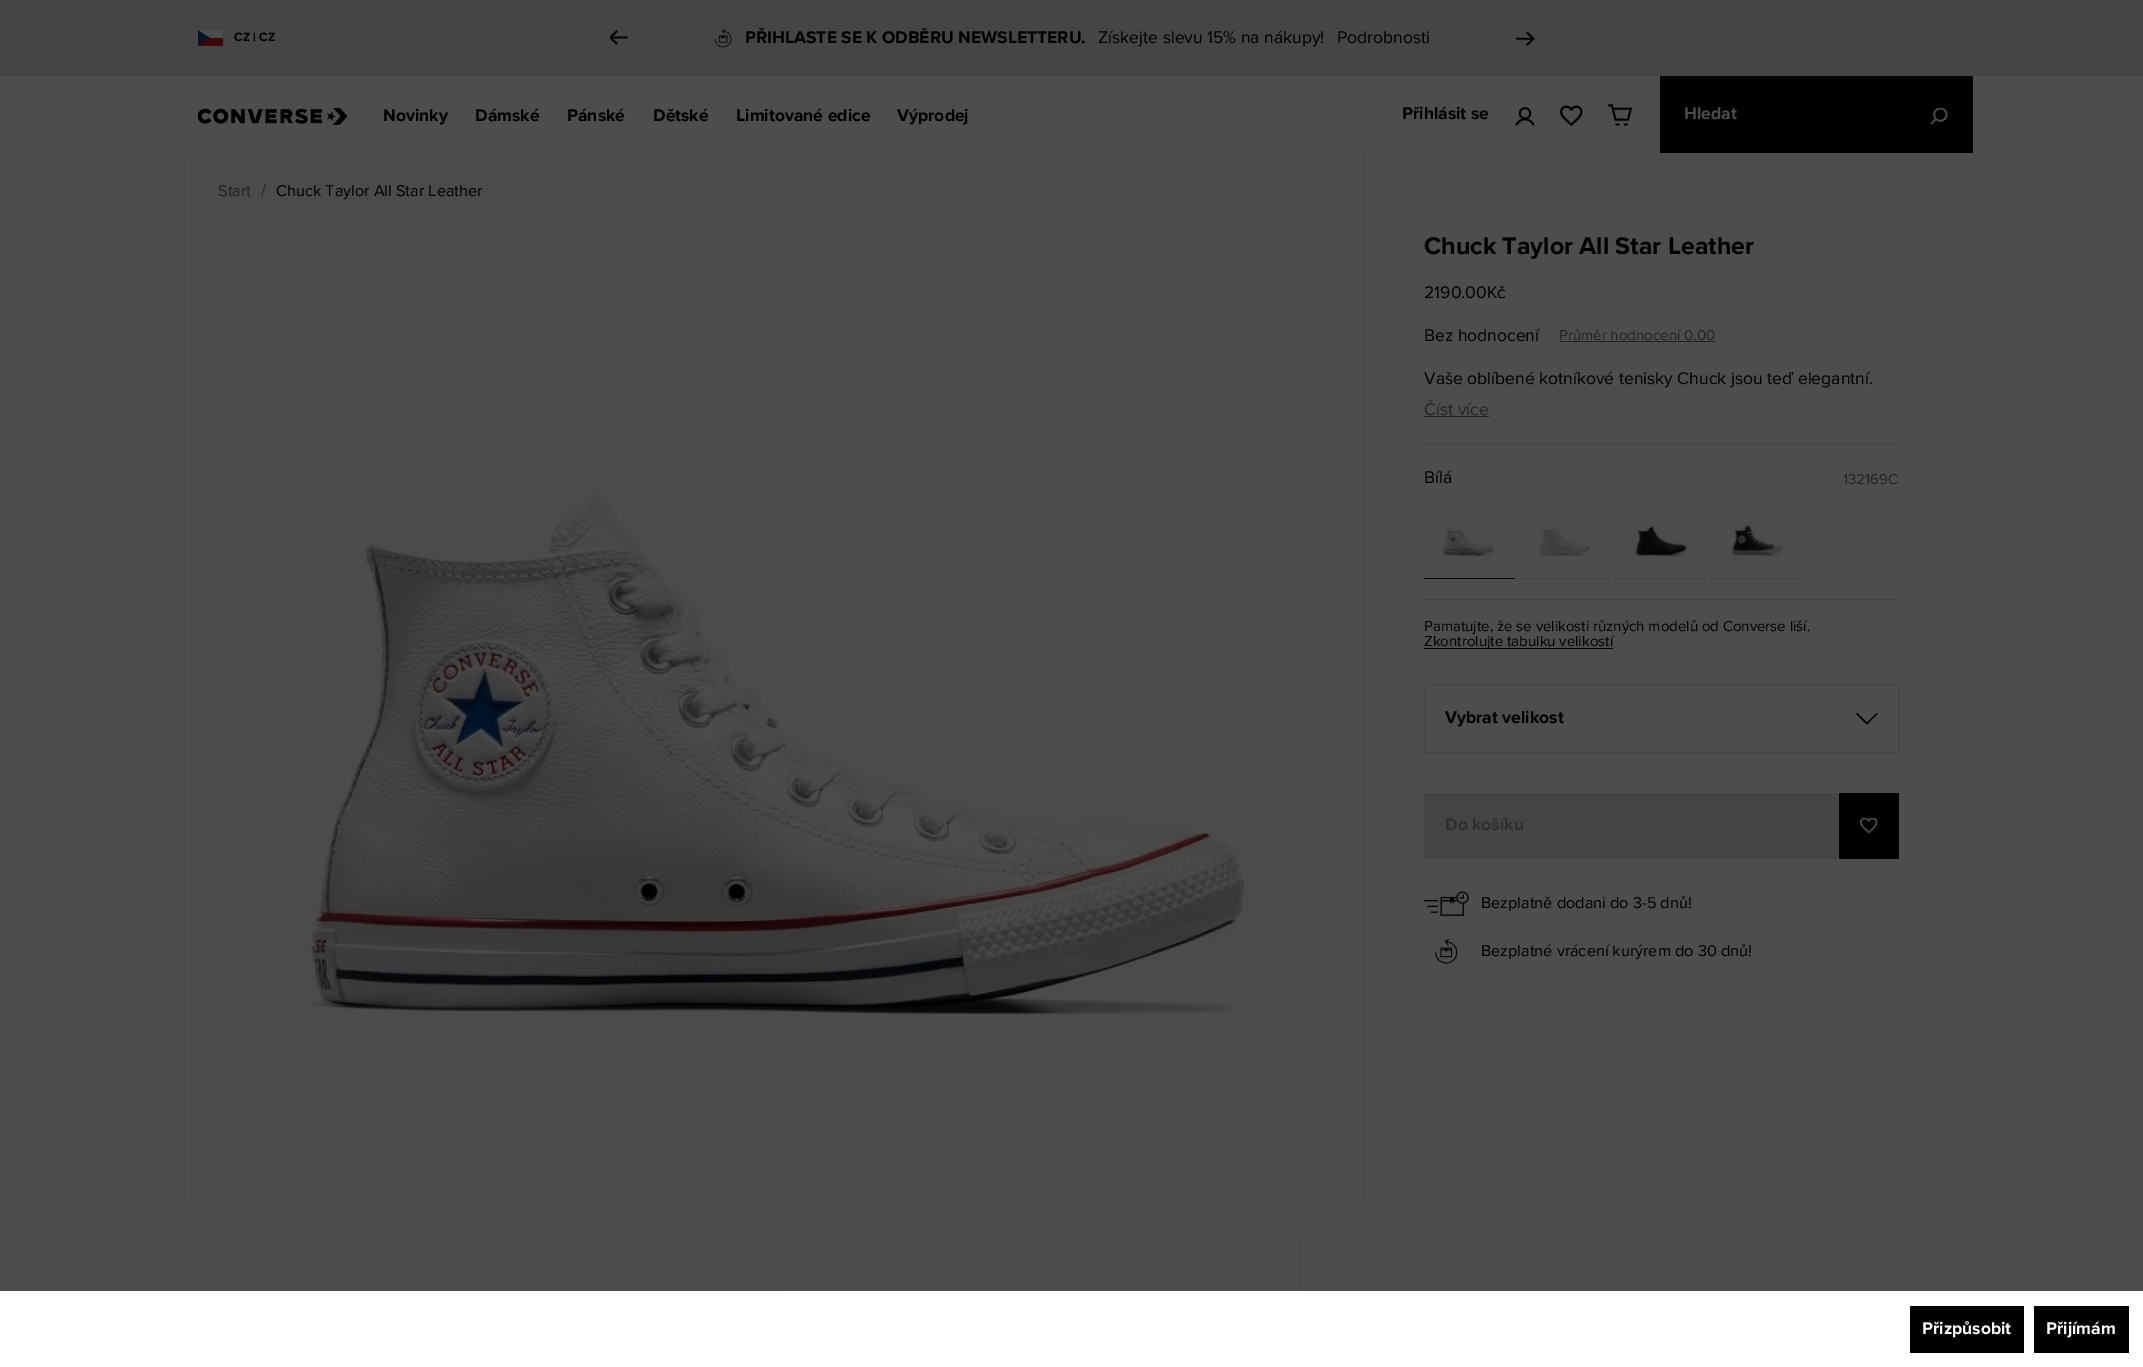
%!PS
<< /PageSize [2143 1367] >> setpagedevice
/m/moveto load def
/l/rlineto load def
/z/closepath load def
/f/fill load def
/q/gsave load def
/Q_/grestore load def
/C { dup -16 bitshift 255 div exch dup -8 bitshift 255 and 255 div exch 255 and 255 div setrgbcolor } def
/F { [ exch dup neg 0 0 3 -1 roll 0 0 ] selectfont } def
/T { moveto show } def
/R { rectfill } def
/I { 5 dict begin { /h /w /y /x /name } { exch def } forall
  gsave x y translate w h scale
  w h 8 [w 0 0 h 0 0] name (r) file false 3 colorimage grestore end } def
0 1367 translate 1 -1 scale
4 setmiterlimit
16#4D4D4D C
0 0 2143 1367 R
16#454545 C
0 0 2143 76 R
16#410608 C
198 38 25 8 R
16#4D4D4D C
198 30 25 8 R
q
198 30 25 16 rectclip
16#051526 C
197.5 46 m 0 -16 l 12.5 8 l z f
Q_
/ProximaNova-Bold 12.5 F
16#000000 C
(CZ | CZ) 234 41 T
(1.rgb) 610 30 18 15 I
(2.rgb) 714 29 18 19 I
/ProximaNova-Bold 17.5 F
(PŘIHLASTE SE K ODBĚRU NEWSLETTERU.) 745 43 T
/ProximaNova-Regular 17.5 F
(Získejte slevu 15% na nákupy!) 1098 43 T
(Podrobnosti) 1337 43 T
(3.rgb) 1516 31 19 15 I
(4.rgb) 198 108 150 17 I
/ProximaNova-Bold 17.5 F
(Novinky) 383 121 T
(Dámské) 475 121 T
(Pánské) 567 121 T
(Dětské) 653 121 T
(Limitované edice) 736 121 T
(Výprodej) 897 121 T
(Přihlásit se) 1402 119 T
(5.rgb) 1515 107 20 19 I
(6.rgb) 1560 105 23 22 I
(7.rgb) 1608 104 25 22 I
1660 76 313 77 R
16#4D4D4D C
(Hledat) 1684 119 T
(8.rgb) 1930 108 18 17 I
(9.rgb) 189 153 1177 1053 I
/ProximaNova-Regular 16.25 F
16#232323 C
(Start) 218 196 T
/ProximaNova-Regular 17.5 F
(/) 261 196 T
/ProximaNova-Regular 16.25 F
16#000000 C
(Chuck Taylor All Star Leather) 276 196 T
(10.rgb) 788 1235 515 56 I
/ProximaNova-Bold 25 F
(Chuck Taylor All Star Leather) 1424 254 T
/ProximaNova-Regular 17.5 F
(2190.00Kč) 1424 298 T
(Bez hodnocení) 1424 341 T
/ProximaNova-Regular 15 F
16#232323 C
(Průměr hodnocení 0.00) 1559 340 T
1559 341 156 1 R
/ProximaNova-Regular 17.5 F
16#000000 C
(Vaše oblíbené kotníkové tenisky Chuck jsou teď elegantní.) 1424 384 T
16#232323 C
(Číst více) 1424 415 T
1424 416 65 1 R
16#454545 C
1424 444 475 1 R
1424 599 475 1 R
16#000000 C
(Bílá) 1424 483 T
/ProximaNova-Regular 15 F
16#232323 C
(132169C) 1843 484 T
16#000000 C
1424 578 91 1 R
(11.rgb) 1441 528 54 29 I
16#454545 C
1520 578 90 1 R
(12.rgb) 1539 526 52 31 I
1615 578 91 1 R
(13.rgb) 1633 522 55 35 I
1711 578 92 1 R
(14.rgb) 1730 523 54 34 I
16#000000 C
(Pamatujte, že se velikosti různých modelů od Converse liší.) 1424 631 T
1424 648 189 1 R
(Zkontrolujte tabulku velikostí) 1424 646 T
16#454545 C
1424.5 684.5 474 68 rectstroke
/ProximaNova-Bold 17.5 F
16#000000 C
(Vybrat velikost) 1445 723 T
1876.5 713 m -9.5 9.5 l -9.5 -9.5 l -1.5 1 l 11 10.5 l 10.5 -10.5 l z f
16#454545 C
1424 793 414 66 R
16#2F2F2F C
(Do košíku) 1445 830 T
16#000000 C
1839 793 60 66 R
(15.rgb) 1860 818 18 16 I
(16.rgb) 1424 891 45 25 I
/ProximaNova-Regular 16.25 F
(Bezplatně dodani do 3-5 dnů!) 1481 908 T
(17.rgb) 1435 939 23 25 I
(Bezplatné vrácení kurýrem do 30 dnů!) 1481 956 T
16#FFFFFF C
0 1291 2143 76 R
16#000000 C
1910 1306 114 47 R
/ProximaNova-Bold 17.5 F
16#FFFFFF C
(Přizpůsobit) 1922 1334 T
16#000000 C
2034 1306 95 47 R
16#FFFFFF C
(Přijímám) 2046 1334 T
showpage
